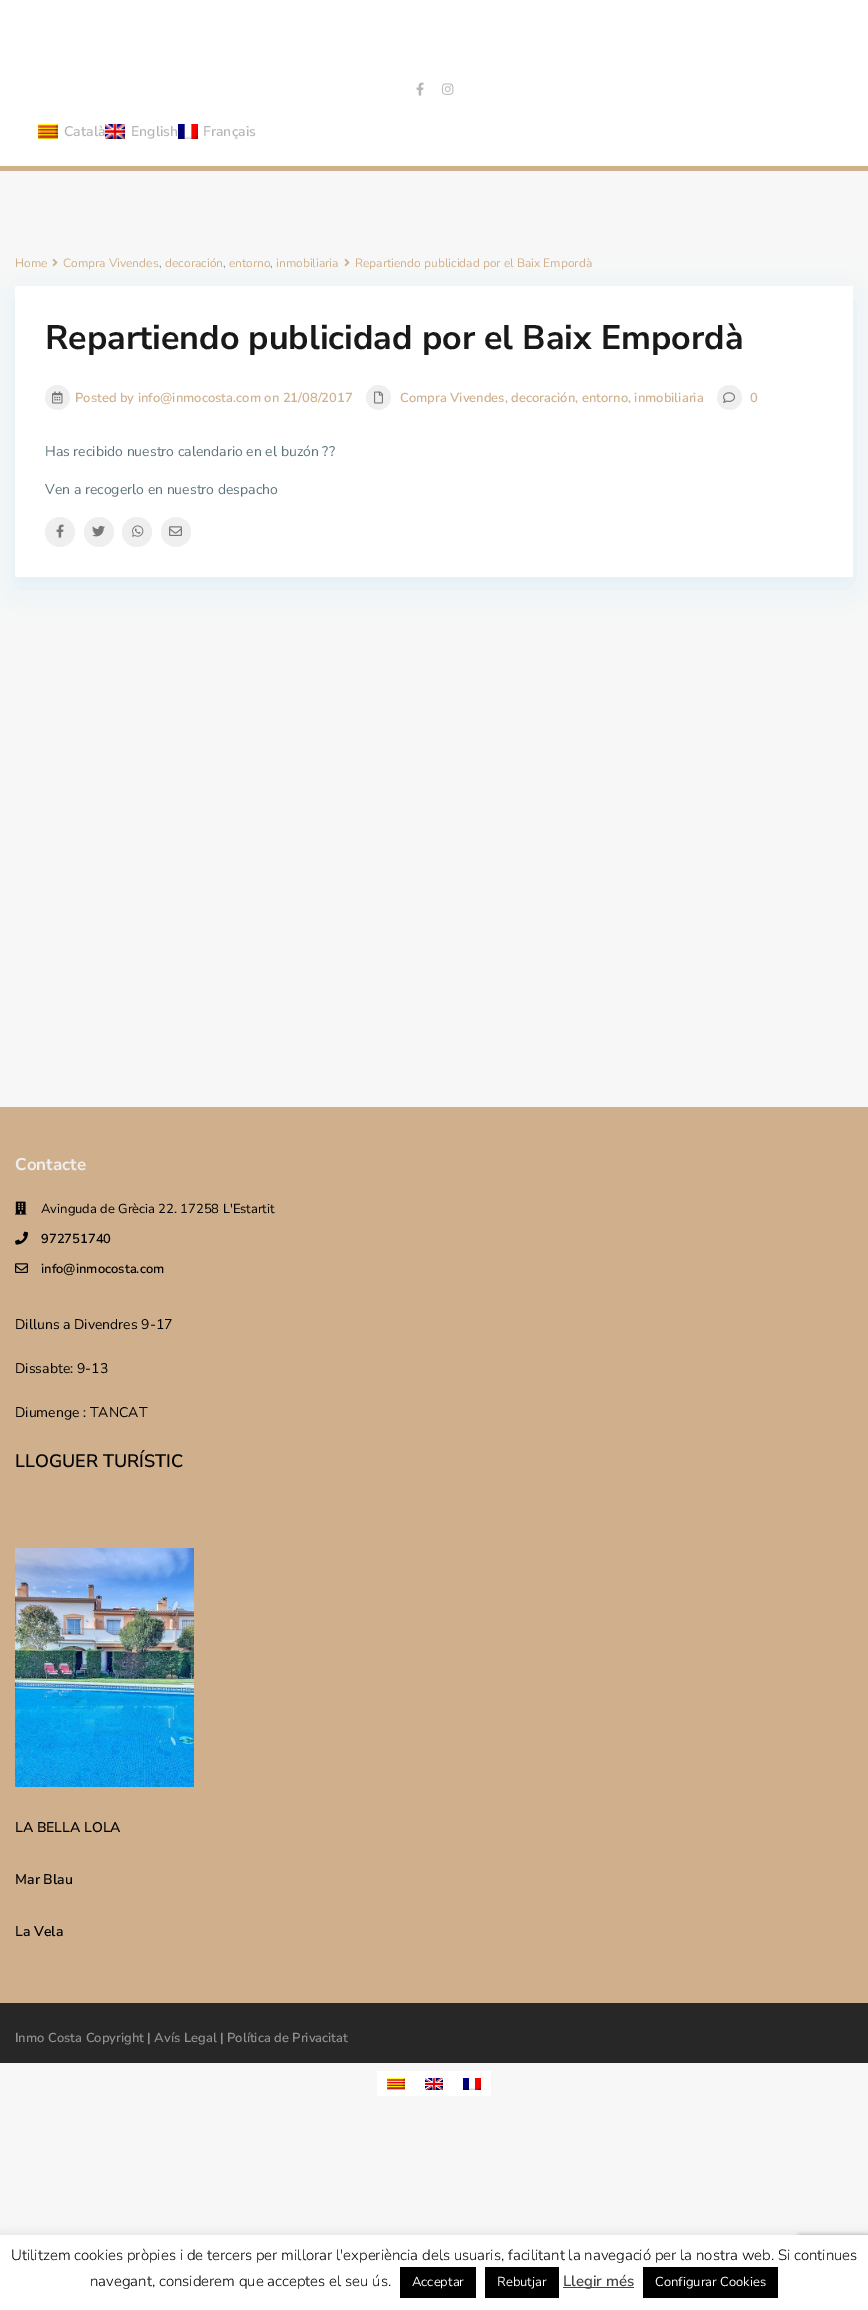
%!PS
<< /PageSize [868 2310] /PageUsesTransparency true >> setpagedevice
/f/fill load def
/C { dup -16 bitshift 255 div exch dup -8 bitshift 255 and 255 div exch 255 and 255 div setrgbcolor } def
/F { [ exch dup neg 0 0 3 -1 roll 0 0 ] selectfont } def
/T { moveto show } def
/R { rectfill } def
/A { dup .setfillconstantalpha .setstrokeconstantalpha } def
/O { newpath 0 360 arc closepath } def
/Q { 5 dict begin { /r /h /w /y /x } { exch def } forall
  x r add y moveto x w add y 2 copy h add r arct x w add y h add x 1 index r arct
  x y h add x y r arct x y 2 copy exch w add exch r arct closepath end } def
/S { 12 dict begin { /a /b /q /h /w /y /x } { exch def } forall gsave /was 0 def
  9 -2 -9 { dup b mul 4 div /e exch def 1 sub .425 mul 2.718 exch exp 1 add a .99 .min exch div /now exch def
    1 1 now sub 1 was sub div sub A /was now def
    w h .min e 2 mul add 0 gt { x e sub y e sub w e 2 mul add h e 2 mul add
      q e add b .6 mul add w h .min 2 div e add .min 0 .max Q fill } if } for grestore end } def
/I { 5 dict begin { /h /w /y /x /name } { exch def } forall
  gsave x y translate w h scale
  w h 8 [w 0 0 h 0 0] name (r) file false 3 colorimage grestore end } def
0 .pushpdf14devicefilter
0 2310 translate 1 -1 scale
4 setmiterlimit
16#F7F7F7 C
0 0 868 2310 R
16#D0B08C C
0 166 868 5 R
16#FFFFFF C
0 0 868 166 R
(1.rgb) 416 82 8 14 I
(2.rgb) 442 83 12 12 I
(3.rgb) 38 124 20 15 I
/NunitoSans-SemiBold 14 F
16#B6B6B6 C
(Català) 64 136 T
(4.rgb) 105 124 20 15 I
(English) 131 136 T
(5.rgb) 178 124 20 15 I
(Français) 203 136 T
/NunitoSans-Regular 12 F
16#D0B08C C
(Home) 15 267 T
(6.rgb) 52 258 6 9 I
(Compra Vivendes) 63 267 T
16#8593A9 C
(,) 159 267 T
16#D0B08C C
(decoración) 165 267 T
16#8593A9 C
(,) 223 267 T
16#D0B08C C
(entorno) 229 267 T
16#8593A9 C
(,) 270 267 T
16#D0B08C C
(inmobiliaria) 276 267 T
(6.rgb) 344 258 6 9 I
(Repartiendo publicidad por el Baix Empordà) 355 267 T
16#0798FF C
15 296 838 291 2 15.5 .09 S
16#FFFFFF C
15 286 838 291 2 Q f
/NunitoSans-Bold 34 F
16#191919 C
(Repartiendo publicidad por el Baix Empordà) 45 349 T
16#EFEFEF C
57.5 397.5 12.5 O f
(7.rgb) 52 391 11 13 I
/NunitoSans-SemiBold 13 F
16#D0B08C C
(Posted by info@inmocosta.com on 21/08/2017) 75 402 T
16#EFEFEF C
378.5 397.5 12.5 O f
(8.rgb) 374 391 9 13 I
16#D0B08C C
(Compra Vivendes, decoración, entorno, inmobiliaria) 400 402 T
16#EFEFEF C
729.5 397.5 12.5 O f
(9.rgb) 723 392 12 11 I
16#D0B08C C
(0) 750 402 T
/NunitoSans-Regular 14 F
16#5C727D C
(Has recibido nuestro calendario en el buzón ??) 45 456 T
(Ven a recogerlo en nuestro despacho) 45 494 T
16#EFEFEF C
60 532 15 O f
(10.rgb) 56 524 8 14 I
99 532 15 O f
(11.rgb) 92 525 13 12 I
137 532 15 O f
(12.rgb) 132 525 12 12 I
176 532 15 O f
(13.rgb) 169 526 13 10 I
16#D0B08C C
0 1107 868 896 R
/NunitoSans-Bold 17 F
16#EEEEEE C
(Contacte) 15 1170 T
(14.rgb) 15 1201 12 14 I
/NunitoSans-Regular 13 F
16#000000 C
(Avinguda de Grècia 22. 17258 L'Estartit) 41 1213 T
(15.rgb) 15 1231 13 14 I
/NunitoSans-SemiBold 13 F
(972751740) 41 1243 T
(16.rgb) 15 1263 13 10 I
(info@inmocosta.com) 41 1273 T
/NunitoSans-Regular 14 F
(Dilluns a Divendres 9-17) 15 1329 T
(Dissabte: 9-13) 15 1373 T
(Diumenge : TANCAT) 15 1417 T
/NunitoSans-SemiBold 18 F
(LLOGUER TURÍSTIC) 15 1467 T
(17.rgb) 15 1548 179 239 I
/NunitoSans-SemiBold 14 F
(LA BELLA LOLA) 15 1832 T
(Mar Blau) 15 1884 T
(La Vela) 15 1936 T
16#272727 C
0 2003 868 60 R
/NunitoSans-SemiBold 13 F
16#919191 C
(Inmo Costa Copyright | Avís Legal | Política de Privacitat) 15 2042 T
16#FFFFFF C
377 2071 114 25 R
(18.rgb) 387 2078 18 12 I
(19.rgb) 425 2078 18 12 I
(20.rgb) 463 2078 18 12 I
16#808080 C
798 2236 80 60 2 2.5 1 S
16#ACABAB C
0 2234 868 75 0 5 .3 S
16#FFFFFF C
0 2235 868 75 R
/NunitoSans-Light 15 F
16#000000 C
(Utilitzem cookies pròpies i de tercers per millorar l'experiència dels usuaris, facilitant la navegació per la nostra web. Si continues) 11 2260 T
(navegant, considerem que acceptes el seu ús.) 90 2286 T
400 2267 76 31 R
/NunitoSans-Regular 13 F
16#FFFFFF C
(Acceptar) 412 2286 T
16#000000 C
485 2267 74 31 R
16#FFFFFF C
(Rebutjar) 497 2286 T
16#444444 C
563 2287 71 1 R
/NunitoSans-SemiBold 15 F
(Llegir més) 563 2286 T
16#000000 C
643 2267 135 31 R
/NunitoSans-Regular 13 F
16#FFFFFF C
(Configurar Cookies) 655 2286 T
.poppdf14devicefilter showpage
